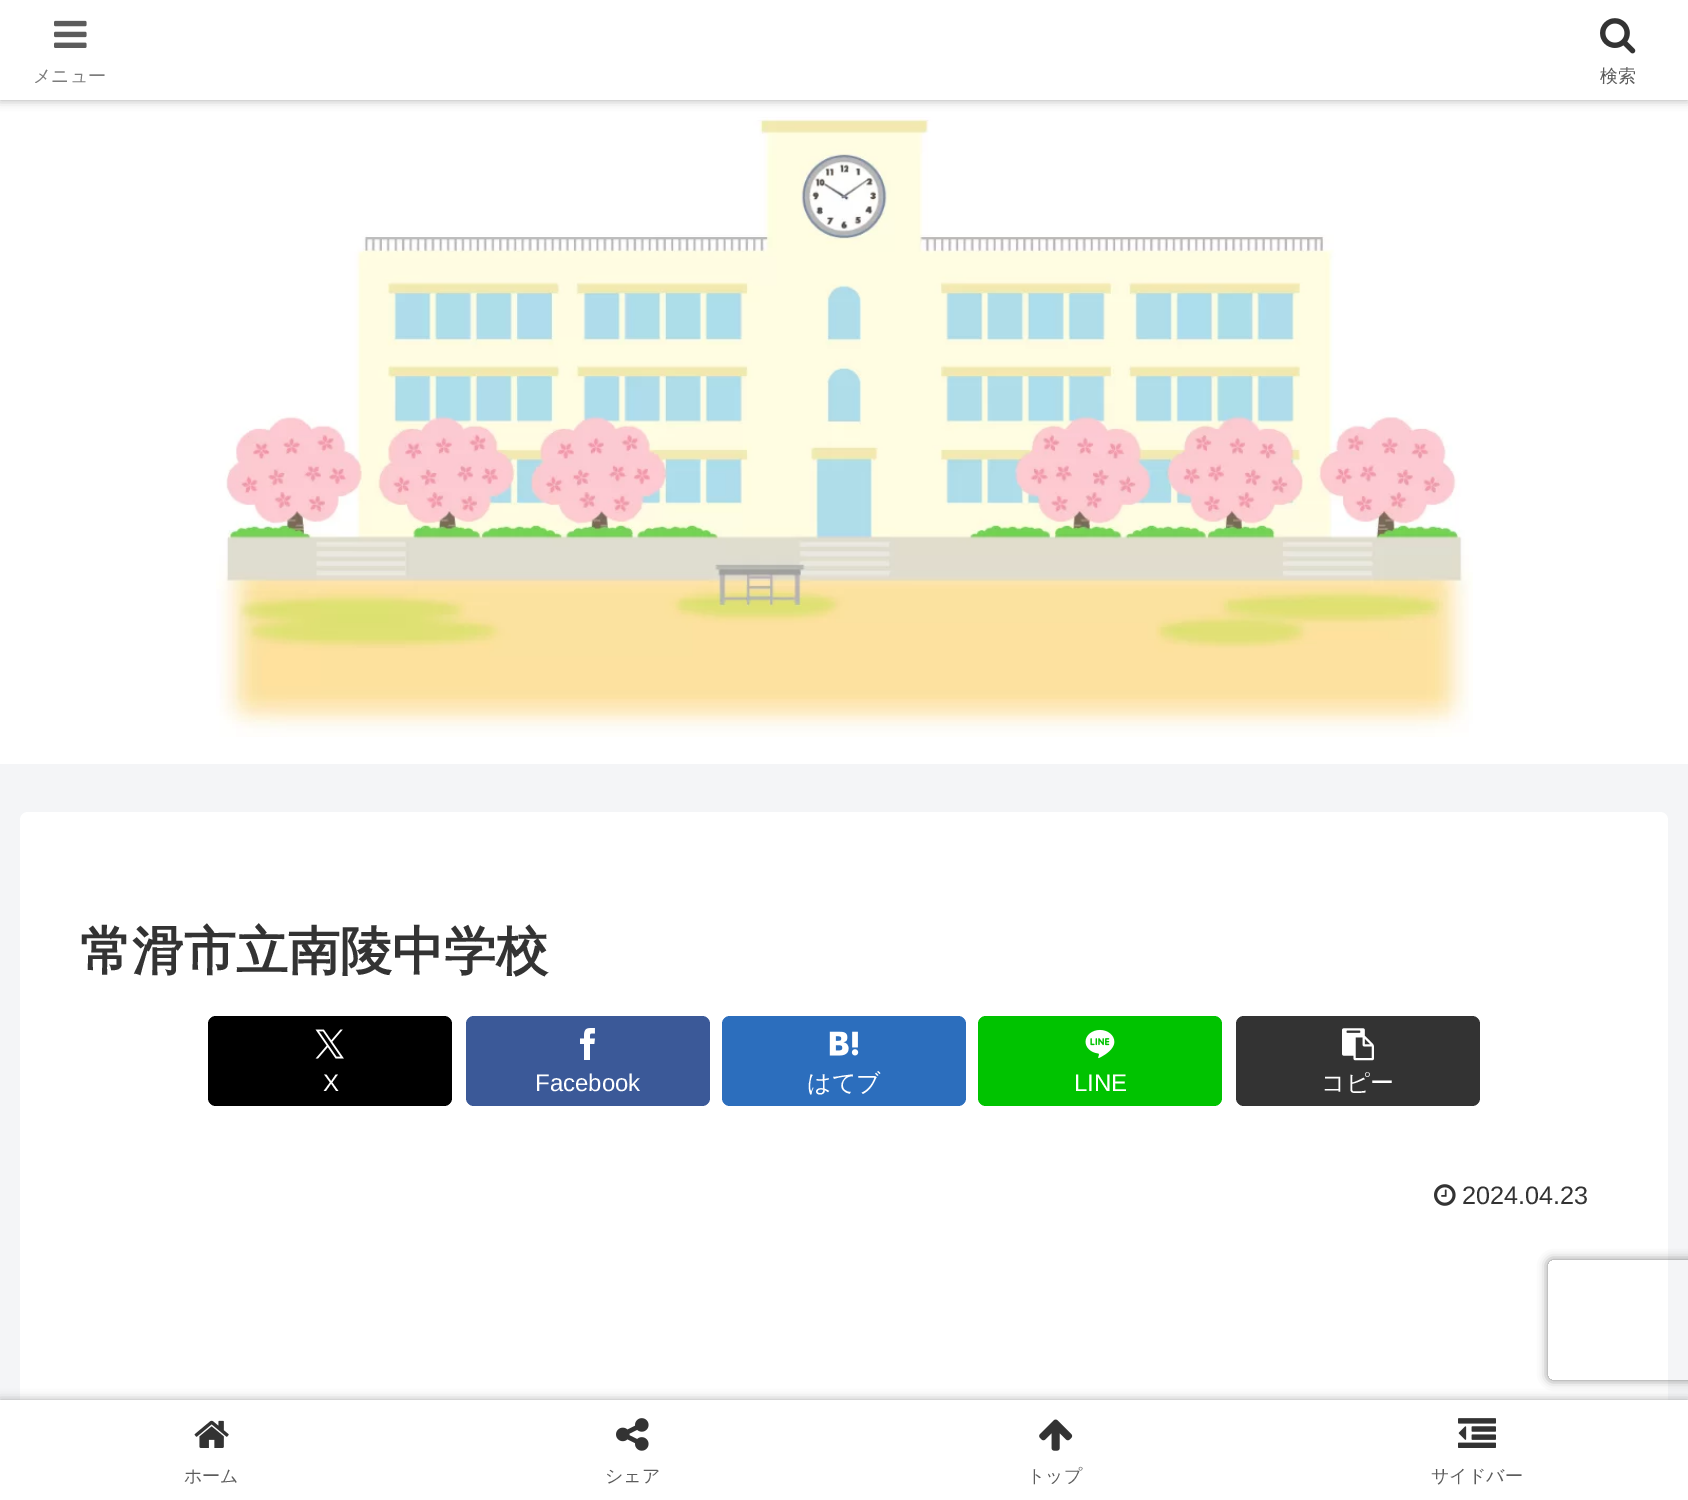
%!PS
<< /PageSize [1688 1500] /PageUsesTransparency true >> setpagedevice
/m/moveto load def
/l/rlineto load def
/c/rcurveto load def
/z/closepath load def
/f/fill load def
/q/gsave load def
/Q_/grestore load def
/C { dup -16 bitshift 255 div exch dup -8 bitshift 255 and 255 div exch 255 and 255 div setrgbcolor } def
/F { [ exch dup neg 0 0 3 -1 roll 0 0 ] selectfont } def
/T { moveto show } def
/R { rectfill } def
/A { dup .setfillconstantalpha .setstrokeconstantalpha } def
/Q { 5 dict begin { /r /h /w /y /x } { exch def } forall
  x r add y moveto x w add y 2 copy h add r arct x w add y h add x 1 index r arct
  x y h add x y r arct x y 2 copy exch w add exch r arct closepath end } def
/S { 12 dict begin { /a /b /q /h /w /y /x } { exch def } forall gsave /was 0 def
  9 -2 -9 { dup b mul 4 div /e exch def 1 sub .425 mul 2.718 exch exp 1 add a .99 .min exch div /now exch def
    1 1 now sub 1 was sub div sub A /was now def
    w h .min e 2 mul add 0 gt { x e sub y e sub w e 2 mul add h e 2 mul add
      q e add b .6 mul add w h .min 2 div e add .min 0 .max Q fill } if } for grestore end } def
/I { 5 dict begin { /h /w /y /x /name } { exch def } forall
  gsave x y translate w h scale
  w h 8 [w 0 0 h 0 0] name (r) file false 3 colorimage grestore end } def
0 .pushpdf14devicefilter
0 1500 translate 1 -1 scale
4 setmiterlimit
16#F4F5F7 C
0 0 1688 1500 R
16#FFFFFF C
0 100 1688 664 R
16#A9A9A9 C
0 0 1688 100 0 5 1 S
16#FFFFFF C
0 0 1688 100 R
(1.rgb) 54 20 33 28 I
/WenQuanYiZenHei-Medium 18 F
16#7C7C7C C
(メニュー) 33 82 T
(2.rgb) 1600 18 36 36 I
16#5C5C5C C
(検索) 1600 82 T
(3.rgb) 216 117 1257 620 I
16#FFFFFF C
20 812 1648 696 8 Q f
/WenQuanYiZenHei-Bold 52 F
16#333333 C
(常滑市立南陵中学校) 80 969 T
16#000000 C
208 1016 244 90 8 Q f
(4.rgb) 315 1029 29 30 I
/LiberationSans-Regular 24 F
16#FFFFFF C
(X) 323 1091 T
16#3B5998 C
466 1016 244 90 8 Q f
(5.rgb) 580 1028 15 32 I
16#FFFFFF C
(Facebook) 535 1091 T
16#2C6EBD C
722 1016 244 90 8 Q f
(6.rgb) 829 1031 30 25 I
/WenQuanYiZenHei-Medium 24 F
16#FFFFFF C
(はてブ) 807 1091 T
16#00C300 C
978 1016 244 90 8 Q f
(7.rgb) 1085 1029 30 30 I
/LiberationSans-Regular 24 F
16#FFFFFF C
(LINE) 1074 1091 T
16#333333 C
1236 1016 244 90 8 Q f
(8.rgb) 1342 1028 32 33 I
/WenQuanYiZenHei-Medium 24 F
16#FFFFFF C
(コピー) 1321 1091 T
(9.rgb) 1434 1184 22 22 I
/LiberationSans-Regular 25.25 F
16#333333 C
(2024.04.23) 1462 1204 T
16#A9A9A9 C
0 1400 1688 100 0 5 1 S
16#FFFFFF C
0 1400 1688 100 R
(10.rgb) 194 1420 35 28 I
/WenQuanYiZenHei-Medium 18 F
16#5C5C5C C
(ホーム) 184 1482 T
(11.rgb) 616 1418 33 33 I
(シェア) 605 1482 T
(12.rgb) 1039 1419 34 32 I
(トップ) 1027 1482 T
(13.rgb) 1458 1418 38 30 I
(サイドバー) 1431 1482 T
q
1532 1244 m 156 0 l 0 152 l -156 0 l z 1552 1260 m 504 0 l 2 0 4 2 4 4 c 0 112 l 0 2 -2 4 -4 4 c -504 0 l -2 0 -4 -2 -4 -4 c 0 -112 l 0 -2 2 -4 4 -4 c z eoclip newpath
16#808080 C
1548 1260 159 120 4 5 1 S
Q_
.poppdf14devicefilter showpage
